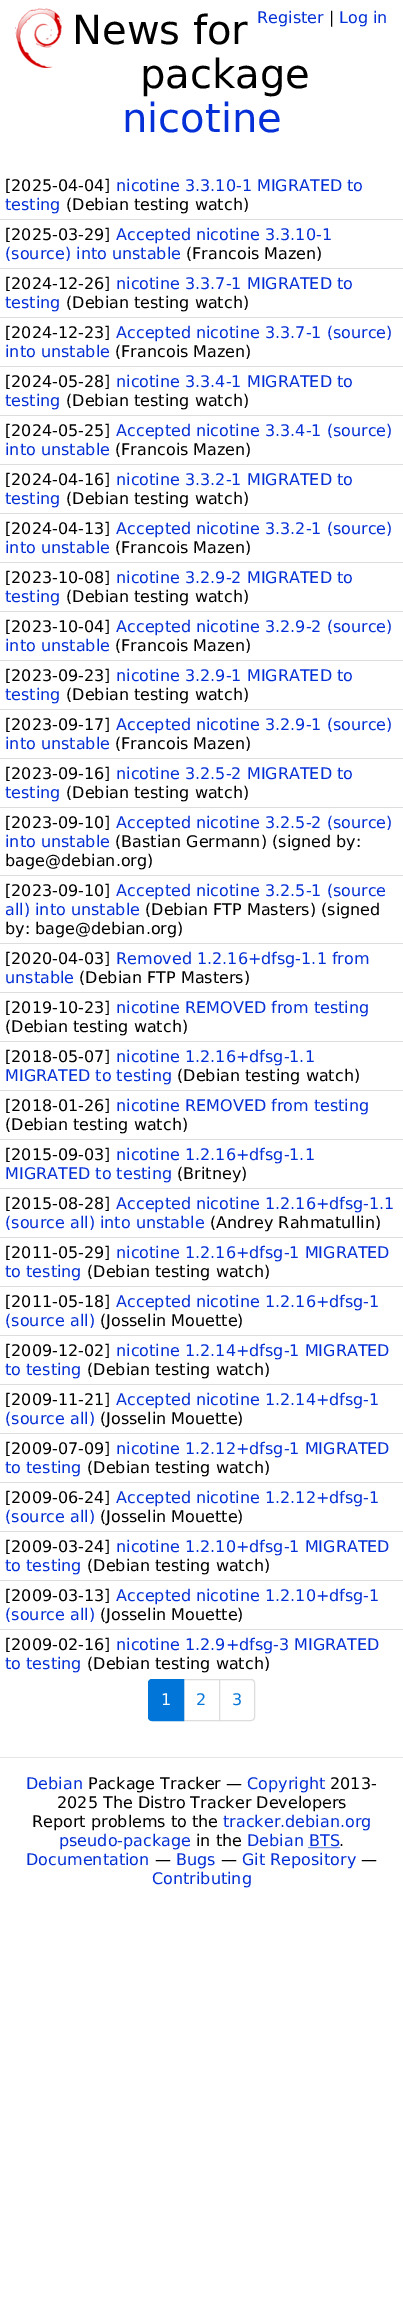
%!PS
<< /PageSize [403 2321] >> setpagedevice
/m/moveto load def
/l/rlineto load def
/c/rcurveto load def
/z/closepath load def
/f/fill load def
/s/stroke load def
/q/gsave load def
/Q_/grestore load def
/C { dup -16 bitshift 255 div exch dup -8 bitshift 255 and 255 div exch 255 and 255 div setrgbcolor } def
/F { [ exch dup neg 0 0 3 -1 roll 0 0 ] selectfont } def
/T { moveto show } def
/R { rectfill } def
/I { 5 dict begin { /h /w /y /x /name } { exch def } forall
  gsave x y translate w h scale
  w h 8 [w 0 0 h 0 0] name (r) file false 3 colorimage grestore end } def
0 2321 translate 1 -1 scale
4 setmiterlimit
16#FFFFFF C
0 0 403 2321 R
(1.rgb) 15 8 47 60 I
/DejaVuSans-Regular 40 F
16#000000 C
(News for) 72 44 T
(package) 140 88 T
16#0530D7 C
(nicotine) 122 132 T
/DejaVuSans-Regular 16 F
(Register) 257 23 T
16#000000 C
(|) 329 23 T
16#0530D7 C
(Log in) 339 23 T
16#DDDDDD C
0 219 403 1 R
16#000000 C
([2025-04-04]) 5 191 T
16#0530D7 C
(nicotine 3.3.10-1 MIGRATED to) 116 191 T
(testing) 5 210 T
16#000000 C
(\(Debian testing watch\)) 66 210 T
16#DDDDDD C
0 268 403 1 R
16#000000 C
([2025-03-29]) 5 240 T
16#0530D7 C
(Accepted nicotine 3.3.10-1) 116 240 T
(\(source\) into unstable) 5 259 T
16#000000 C
(\(Francois Mazen\)) 186 259 T
16#DDDDDD C
0 317 403 1 R
16#000000 C
([2024-12-26]) 5 289 T
16#0530D7 C
(nicotine 3.3.7-1 MIGRATED to) 116 289 T
(testing) 5 308 T
16#000000 C
(\(Debian testing watch\)) 66 308 T
16#DDDDDD C
0 366 403 1 R
16#000000 C
([2024-12-23]) 5 338 T
16#0530D7 C
(Accepted nicotine 3.3.7-1 \(source\)) 116 338 T
(into unstable) 5 357 T
16#000000 C
(\(Francois Mazen\)) 115 357 T
16#DDDDDD C
0 415 403 1 R
16#000000 C
([2024-05-28]) 5 387 T
16#0530D7 C
(nicotine 3.3.4-1 MIGRATED to) 116 387 T
(testing) 5 406 T
16#000000 C
(\(Debian testing watch\)) 66 406 T
16#DDDDDD C
0 464 403 1 R
16#000000 C
([2024-05-25]) 5 436 T
16#0530D7 C
(Accepted nicotine 3.3.4-1 \(source\)) 116 436 T
(into unstable) 5 455 T
16#000000 C
(\(Francois Mazen\)) 115 455 T
16#DDDDDD C
0 513 403 1 R
16#000000 C
([2024-04-16]) 5 485 T
16#0530D7 C
(nicotine 3.3.2-1 MIGRATED to) 116 485 T
(testing) 5 504 T
16#000000 C
(\(Debian testing watch\)) 66 504 T
16#DDDDDD C
0 562 403 1 R
16#000000 C
([2024-04-13]) 5 534 T
16#0530D7 C
(Accepted nicotine 3.3.2-1 \(source\)) 116 534 T
(into unstable) 5 553 T
16#000000 C
(\(Francois Mazen\)) 115 553 T
16#DDDDDD C
0 611 403 1 R
16#000000 C
([2023-10-08]) 5 583 T
16#0530D7 C
(nicotine 3.2.9-2 MIGRATED to) 116 583 T
(testing) 5 602 T
16#000000 C
(\(Debian testing watch\)) 66 602 T
16#DDDDDD C
0 660 403 1 R
16#000000 C
([2023-10-04]) 5 632 T
16#0530D7 C
(Accepted nicotine 3.2.9-2 \(source\)) 116 632 T
(into unstable) 5 651 T
16#000000 C
(\(Francois Mazen\)) 115 651 T
16#DDDDDD C
0 709 403 1 R
16#000000 C
([2023-09-23]) 5 681 T
16#0530D7 C
(nicotine 3.2.9-1 MIGRATED to) 116 681 T
(testing) 5 700 T
16#000000 C
(\(Debian testing watch\)) 66 700 T
16#DDDDDD C
0 758 403 1 R
16#000000 C
([2023-09-17]) 5 730 T
16#0530D7 C
(Accepted nicotine 3.2.9-1 \(source\)) 116 730 T
(into unstable) 5 749 T
16#000000 C
(\(Francois Mazen\)) 115 749 T
16#DDDDDD C
0 807 403 1 R
16#000000 C
([2023-09-16]) 5 779 T
16#0530D7 C
(nicotine 3.2.5-2 MIGRATED to) 116 779 T
(testing) 5 798 T
16#000000 C
(\(Debian testing watch\)) 66 798 T
16#DDDDDD C
0 875 403 1 R
16#000000 C
([2023-09-10]) 5 828 T
16#0530D7 C
(Accepted nicotine 3.2.5-2 \(source\)) 116 828 T
(into unstable) 5 847 T
16#000000 C
(\(Bastian Germann\) \(signed by:) 115 847 T
(bage@debian.org\)) 5 866 T
16#DDDDDD C
0 943 403 1 R
16#000000 C
([2023-09-10]) 5 896 T
16#0530D7 C
(Accepted nicotine 3.2.5-1 \(source) 116 896 T
(all\) into unstable) 5 915 T
16#000000 C
(\(Debian FTP Masters\) \(signed) 145 915 T
(by: bage@debian.org\)) 5 934 T
16#DDDDDD C
0 992 403 1 R
16#000000 C
([2020-04-03]) 5 964 T
16#0530D7 C
(Removed 1.2.16+dfsg-1.1 from) 116 964 T
(unstable) 5 983 T
16#000000 C
(\(Debian FTP Masters\)) 79 983 T
16#DDDDDD C
0 1041 403 1 R
16#000000 C
([2019-10-23]) 5 1013 T
16#0530D7 C
(nicotine REMOVED from testing) 116 1013 T
16#000000 C
(\(Debian testing watch\)) 5 1032 T
16#DDDDDD C
0 1090 403 1 R
16#000000 C
([2018-05-07]) 5 1062 T
16#0530D7 C
(nicotine 1.2.16+dfsg-1.1) 116 1062 T
(MIGRATED to testing) 5 1081 T
16#000000 C
(\(Debian testing watch\)) 177 1081 T
16#DDDDDD C
0 1139 403 1 R
16#000000 C
([2018-01-26]) 5 1111 T
16#0530D7 C
(nicotine REMOVED from testing) 116 1111 T
16#000000 C
(\(Debian testing watch\)) 5 1130 T
16#DDDDDD C
0 1188 403 1 R
16#000000 C
([2015-09-03]) 5 1160 T
16#0530D7 C
(nicotine 1.2.16+dfsg-1.1) 116 1160 T
(MIGRATED to testing) 5 1179 T
16#000000 C
(\(Britney\)) 177 1179 T
16#DDDDDD C
0 1237 403 1 R
16#000000 C
([2015-08-28]) 5 1209 T
16#0530D7 C
(Accepted nicotine 1.2.16+dfsg-1.1) 116 1209 T
(\(source all\) into unstable) 5 1228 T
16#000000 C
(\(Andrey Rahmatullin\)) 210 1228 T
16#DDDDDD C
0 1286 403 1 R
16#000000 C
([2011-05-29]) 5 1258 T
16#0530D7 C
(nicotine 1.2.16+dfsg-1 MIGRATED) 116 1258 T
(to testing) 5 1277 T
16#000000 C
(\(Debian testing watch\)) 87 1277 T
16#DDDDDD C
0 1335 403 1 R
16#000000 C
([2011-05-18]) 5 1307 T
16#0530D7 C
(Accepted nicotine 1.2.16+dfsg-1) 116 1307 T
(\(source all\)) 5 1326 T
16#000000 C
(\(Josselin Mouette\)) 100 1326 T
16#DDDDDD C
0 1384 403 1 R
16#000000 C
([2009-12-02]) 5 1356 T
16#0530D7 C
(nicotine 1.2.14+dfsg-1 MIGRATED) 116 1356 T
(to testing) 5 1375 T
16#000000 C
(\(Debian testing watch\)) 87 1375 T
16#DDDDDD C
0 1433 403 1 R
16#000000 C
([2009-11-21]) 5 1405 T
16#0530D7 C
(Accepted nicotine 1.2.14+dfsg-1) 116 1405 T
(\(source all\)) 5 1424 T
16#000000 C
(\(Josselin Mouette\)) 100 1424 T
16#DDDDDD C
0 1482 403 1 R
16#000000 C
([2009-07-09]) 5 1454 T
16#0530D7 C
(nicotine 1.2.12+dfsg-1 MIGRATED) 116 1454 T
(to testing) 5 1473 T
16#000000 C
(\(Debian testing watch\)) 87 1473 T
16#DDDDDD C
0 1531 403 1 R
16#000000 C
([2009-06-24]) 5 1503 T
16#0530D7 C
(Accepted nicotine 1.2.12+dfsg-1) 116 1503 T
(\(source all\)) 5 1522 T
16#000000 C
(\(Josselin Mouette\)) 100 1522 T
16#DDDDDD C
0 1580 403 1 R
16#000000 C
([2009-03-24]) 5 1552 T
16#0530D7 C
(nicotine 1.2.10+dfsg-1 MIGRATED) 116 1552 T
(to testing) 5 1571 T
16#000000 C
(\(Debian testing watch\)) 87 1571 T
([2009-03-13]) 5 1601 T
16#0530D7 C
(Accepted nicotine 1.2.10+dfsg-1) 116 1601 T
(\(source all\)) 5 1620 T
16#000000 C
(\(Josselin Mouette\)) 100 1620 T
16#DDDDDD C
0 1629 403 1 R
16#000000 C
([2009-02-16]) 5 1650 T
16#0530D7 C
(nicotine 1.2.9+dfsg-3 MIGRATED) 116 1650 T
(to testing) 5 1669 T
16#000000 C
(\(Debian testing watch\)) 87 1669 T
16#DDDDDD C
183.5 1679.5 36 41 rectstroke
16#0275D8 C
152 1679.5 m 31.5 0 l 0 41 l -31.5 0 l -2 0 -3.5 -1.5 -3.5 -3.5 c 0 -34 l 0 -2 1.5 -3.5 3.5 -3.5 c z q f Q_
s
16#FFFFFF C
(1) 161 1705 T
16#0275D8 C
(2) 196 1705 T
16#FFFFFF C
219.5 1679.5 m 31.5 0 l 2 0 3.5 1.5 3.5 3.5 c 0 34 l 0 2 -1.5 3.5 -3.5 3.5 c -31.5 0 l z q f Q_
16#DDDDDD C
s
16#0275D8 C
(3) 232 1705 T
16#E6E6E6 C
0 1757 403 1 R
16#0530D7 C
(Debian) 26 1789 T
16#000000 C
(Package Tracker —) 88 1789 T
16#0530D7 C
(Copyright) 247 1789 T
16#000000 C
(2013-) 330 1789 T
(2025 The Distro Tracker Developers) 57 1808 T
(Report problems to the) 32 1827 T
16#0530D7 C
(tracker.debian.org) 223 1827 T
(pseudo-package) 59 1846 T
16#000000 C
(in the) 196 1846 T
16#0530D7 C
(Debian BTS) 247 1846 T
[1 1] 0 setdash
308.5 1847.5 m 31 0 l s
16#000000 C
(.) 339 1846 T
16#0530D7 C
(Documentation) 26 1865 T
16#000000 C
(—) 155 1865 T
16#0530D7 C
(Bugs) 176 1865 T
16#000000 C
(—) 221 1865 T
16#0530D7 C
(Git Repository) 242 1865 T
16#000000 C
(—) 361 1865 T
16#0530D7 C
(Contributing) 152 1884 T
showpage
